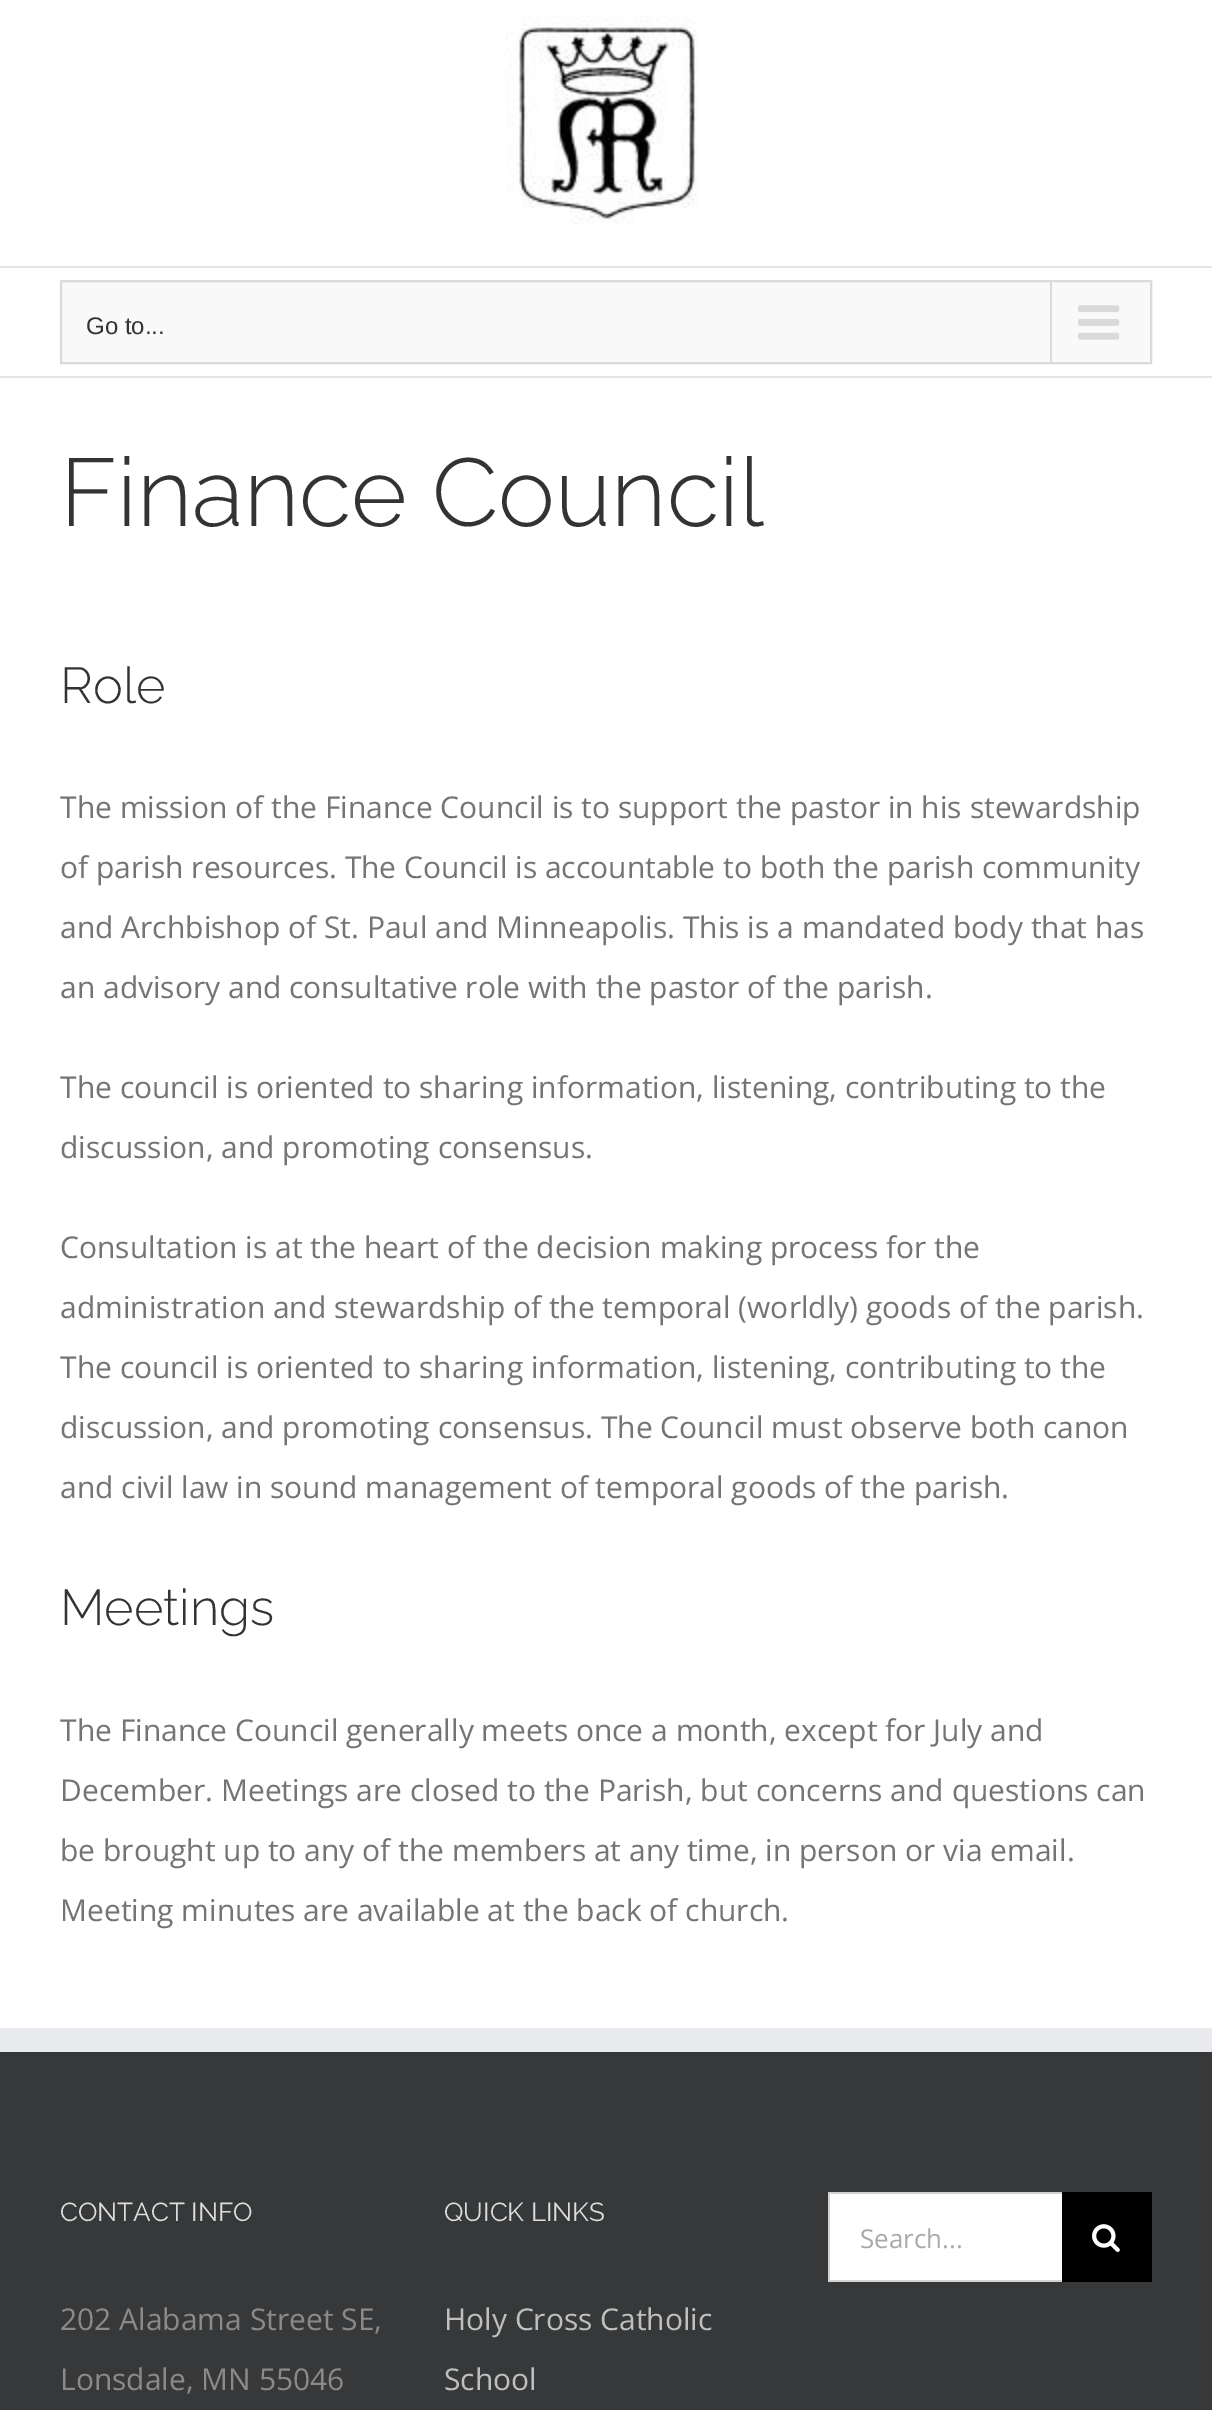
%!PS
<< /PageSize [1212 2410] >> setpagedevice
/m/moveto load def
/l/rlineto load def
/z/closepath load def
/f/fill load def
/s/stroke load def
/q/gsave load def
/Q_/grestore load def
/w/setlinewidth load def
/C { dup -16 bitshift 255 div exch dup -8 bitshift 255 and 255 div exch 255 and 255 div setrgbcolor } def
/F { [ exch dup neg 0 0 3 -1 roll 0 0 ] selectfont } def
/T { moveto show } def
/R { rectfill } def
/I { 5 dict begin { /h /w /y /x /name } { exch def } forall
  gsave x y translate w h scale
  w h 8 [w 0 0 h 0 0] name (r) file false 3 colorimage grestore end } def
0 2410 translate 1 -1 scale
4 setmiterlimit
16#FFFFFF C
0 0 1212 2410 R
16#E5E5E5 C
0 266 1212 2 R
(1.rgb) 506 16 192 208 I
0 376 1212 2 R
16#F9F9F9 C
61 281 m 1090 0 l 0 82 l -1090 0 l z q f Q_
16#DADADA C
2 w
s
/LiberationSans-Regular 24 F
16#333333 C
(Go to...) 86 334 T
16#DADADA C
1050 282 2 80 R
(2.rgb) 1078 305 42 35 I
/Raleway-Light 96 F
16#333333 C
(Finance Council) 60 526 T
/Raleway-Light 50.5 F
(Role) 60 703 T
/OpenSans-Regular 30 F
16#747474 C
(The mission of the Finance Council is to support the pastor in his stewardship) 60 818 T
(of parish resources. The Council is accountable to both the parish community) 60 878 T
(and Archbishop of St. Paul and Minneapolis. This is a mandated body that has) 60 938 T
(an advisory and consultative role with the pastor of the parish.) 60 998 T
(The council is oriented to sharing information, listening, contributing to the) 60 1098 T
(discussion, and promoting consensus.) 60 1158 T
(Consultation is at the heart of the decision making process for the) 60 1258 T
(administration and stewardship of the temporal \(worldly\) goods of the parish.) 60 1318 T
(The council is oriented to sharing information, listening, contributing to the) 60 1378 T
(discussion, and promoting consensus. The Council must observe both canon) 60 1438 T
(and civil law in sound management of temporal goods of the parish.) 60 1498 T
/Raleway-Light 50.5 F
16#333333 C
(Meetings) 60 1625 T
/OpenSans-Regular 30 F
16#747474 C
(The Finance Council generally meets once a month, except for July and) 60 1741 T
(December. Meetings are closed to the Parish, but concerns and questions can) 60 1801 T
(be brought up to any of the members at any time, in person or via email.) 60 1861 T
(Meeting minutes are available at the back of church.) 60 1921 T
16#363839 C
0 2052 1212 358 R
16#E9EAEE C
0 2028 1212 24 R
/Raleway-Regular 26 F
16#DDDDDD C
(CONTACT INFO) 60 2221 T
/OpenSans-Regular 30 F
16#8C8989 C
(202 Alabama Street SE,) 60 2330 T
(Lonsdale, MN 55046) 60 2390 T
/Raleway-Regular 26 F
16#DDDDDD C
(QUICK LINKS) 444 2221 T
/OpenSans-Regular 30 F
16#BFBFBF C
(Holy Cross Catholic) 444 2330 T
(School) 444 2390 T
16#FFFFFF C
830 2194 232 86 R
16#D2D2D2 C
828 2192 234 2 R
828 2280 234 2 R
828 2192 2 90 R
/OpenSans-Regular 26 F
16#AAA9A9 C
(Search...) 860 2248 T
16#000000 C
1062 2192 90 90 R
(3.rgb) 1092 2224 28 28 I
showpage
